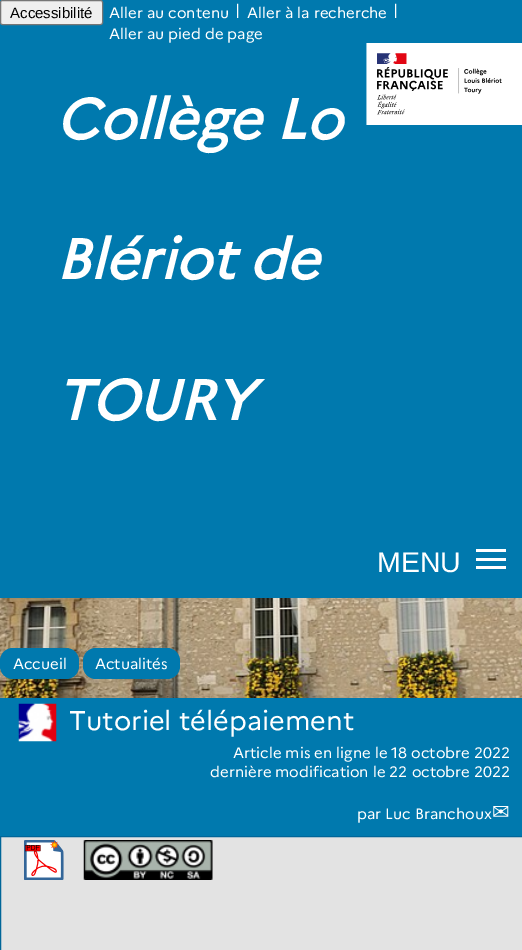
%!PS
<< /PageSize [522 950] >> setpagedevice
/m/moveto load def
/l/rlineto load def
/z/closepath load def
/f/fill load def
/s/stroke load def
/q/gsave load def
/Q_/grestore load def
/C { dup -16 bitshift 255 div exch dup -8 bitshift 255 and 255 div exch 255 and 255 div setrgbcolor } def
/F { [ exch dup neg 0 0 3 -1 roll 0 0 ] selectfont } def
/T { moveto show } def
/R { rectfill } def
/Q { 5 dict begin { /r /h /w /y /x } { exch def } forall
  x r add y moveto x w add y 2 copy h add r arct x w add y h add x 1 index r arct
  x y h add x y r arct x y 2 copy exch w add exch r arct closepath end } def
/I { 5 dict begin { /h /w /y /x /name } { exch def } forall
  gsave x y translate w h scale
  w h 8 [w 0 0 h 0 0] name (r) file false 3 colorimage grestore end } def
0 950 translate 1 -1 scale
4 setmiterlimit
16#FFFFFF C
0 0 522 950 R
(1.rgb) 0 598 522 100 I
16#0079AE C
0 0 522 598 R
16#EFEFEF C
.5 .5 102 24 2 Q q f Q_
16#767676 C
s
/LiberationSans-Regular 15 F
16#000000 C
(Accessibilité) 10 18 T
/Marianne-Regular 15 F
16#FFFFFF C
(Aller au contenu) 109 18 T
(|) 235 15 T
(Aller à la recherche) 247 18 T
(|) 393 15 T
(Aller au pied de page) 109 39 T
(2.rgb) 366 43 156 82 I
/Marianne-BoldItalic 56.25 F
(Collège Lo) 56 139 T
(Blériot de) 56 279 T
(TOURY) 56 420 T
/LiberationSans-Regular 28.5 F
(MENU) 377 572 T
476 558 30 3 R
476 549 30 3 R
476 566 30 3 R
16#0079AE C
0 648 79 31 13 Q f
/Marianne-Regular 15 F
16#FFFFFF C
(Accueil) 13 669 T
16#0079AE C
83 648 97 31 13 Q f
16#FFFFFF C
(Actualités) 95 669 T
16#0079AE C
0 698 522 138 R
(3.rgb) 18 703 39 39 I
/Marianne-Regular 27 F
16#FFFFFF C
(Tutoriel télépaiement) 69 730 T
/Marianne-Regular 15 F
(Article mis en ligne le 18 octobre 2022) 233 758 T
(dernière modification le 22 octobre 2022) 210 777 T
(par Luc Branchoux) 357 819 T
/DejaVuSans-Regular 21 F
(✉) 492 819 T
16#E3E3E3 C
.5 836.5 m 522 0 l 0 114 l -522 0 l z q f Q_
16#006699 C
s
(4.rgb) 24 840 40 40 I
(5.rgb) 83 840 130 40 I
showpage
